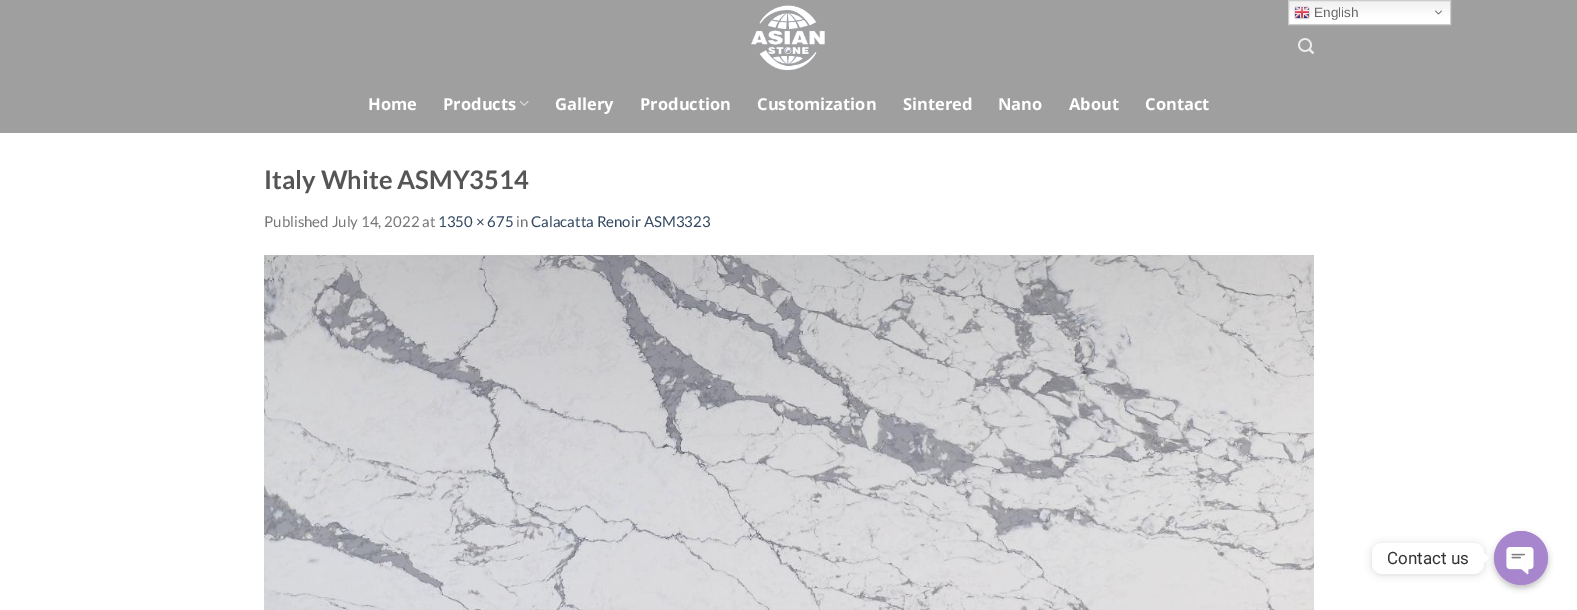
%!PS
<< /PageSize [1577 610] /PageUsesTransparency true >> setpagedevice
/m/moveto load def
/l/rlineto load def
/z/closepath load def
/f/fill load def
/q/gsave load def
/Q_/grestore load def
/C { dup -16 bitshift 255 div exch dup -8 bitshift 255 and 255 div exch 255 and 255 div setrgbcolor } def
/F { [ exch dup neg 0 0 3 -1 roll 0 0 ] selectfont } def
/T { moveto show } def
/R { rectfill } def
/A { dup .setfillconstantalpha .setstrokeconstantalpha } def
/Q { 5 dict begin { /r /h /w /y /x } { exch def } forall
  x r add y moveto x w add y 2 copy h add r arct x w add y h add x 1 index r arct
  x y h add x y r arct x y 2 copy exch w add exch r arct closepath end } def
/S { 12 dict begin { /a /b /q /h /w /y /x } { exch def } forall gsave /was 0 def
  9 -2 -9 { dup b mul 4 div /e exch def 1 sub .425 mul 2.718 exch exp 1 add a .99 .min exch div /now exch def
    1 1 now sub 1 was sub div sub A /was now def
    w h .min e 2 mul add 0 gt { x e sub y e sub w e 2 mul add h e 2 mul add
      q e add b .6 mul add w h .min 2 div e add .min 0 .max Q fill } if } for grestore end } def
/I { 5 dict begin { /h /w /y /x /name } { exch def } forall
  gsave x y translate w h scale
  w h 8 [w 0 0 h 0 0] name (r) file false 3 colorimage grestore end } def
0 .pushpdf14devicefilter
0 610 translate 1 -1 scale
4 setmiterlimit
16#FFFFFF C
0 0 1577 610 R
16#9F9F9F C
0 0 1577 133 R
q 1289 1 m 161 0 l 0 23 l -161 0 l z clip newpath
<< /ShadingType 2 /ColorSpace /DeviceRGB /Coords [1370 0 1370 25] /Extend [true true] /Function << /FunctionType 3 /Domain [0 1] /Functions [<< /FunctionType 2 /Domain [0 1] /C0 [.937 .937 .937] /C1 [1 1 1] /N 1 >> << /FunctionType 2 /Domain [0 1] /C0 [1 1 1] /C1 [1 1 1] /N 1 >>] /Bounds [.7] /Encode [0 1 0 1] >> >> shfill Q_
16#CCCCCC C
1288.5 .5 162 24 rectstroke
(1.rgb) 1294 6 16 14 I
/LiberationSans-Regular 13.5 F
16#666666 C
(English) 1314 17 T
(2.rgb) 1435 10 7 5 I
(3.rgb) 751 5 74 66 I
(4.rgb) 1298 38 16 16 I
/OpenSans-Bold 16.5 F
16#FFFFFF C
(Home) 368 110 T
(Products) 443 110 T
(5.rgb) 519 101 10 5 I
(Gallery) 555 110 T
(Production) 640 110 T
(Customization) 757 110 T
(Sintered) 903 110 T
(Nano) 998 110 T
(About) 1069 110 T
(Contact) 1145 110 T
/Lato-Bold 25.5 F
16#555555 C
(Italy White ASMY3514) 264 189 T
/Lato-Regular 15 F
16#777777 C
(Published July 14, 2022 at) 264 227 T
16#334862 C
(1350 × 675) 438 227 T
16#777777 C
(in) 516 227 T
16#334862 C
(Calacatta Renoir ASM3323) 531 227 T
(6.rgb) 264 255 1050 355 I
16#000000 C
1372 544 112 31 10 4 .15 S
16#FFFFFF C
1372 543 112 31 10 Q f
/Roboto-Regular 17 F
16#333333 C
(Contact us) 1387 564 T
16#FFFFFF C
1484 563 m 0 -10 l 5 5 l z f
16#000000 C
1494 534 54 54 27 3 .25 S
(7.rgb) 1494 531 54 54 I
.poppdf14devicefilter showpage
